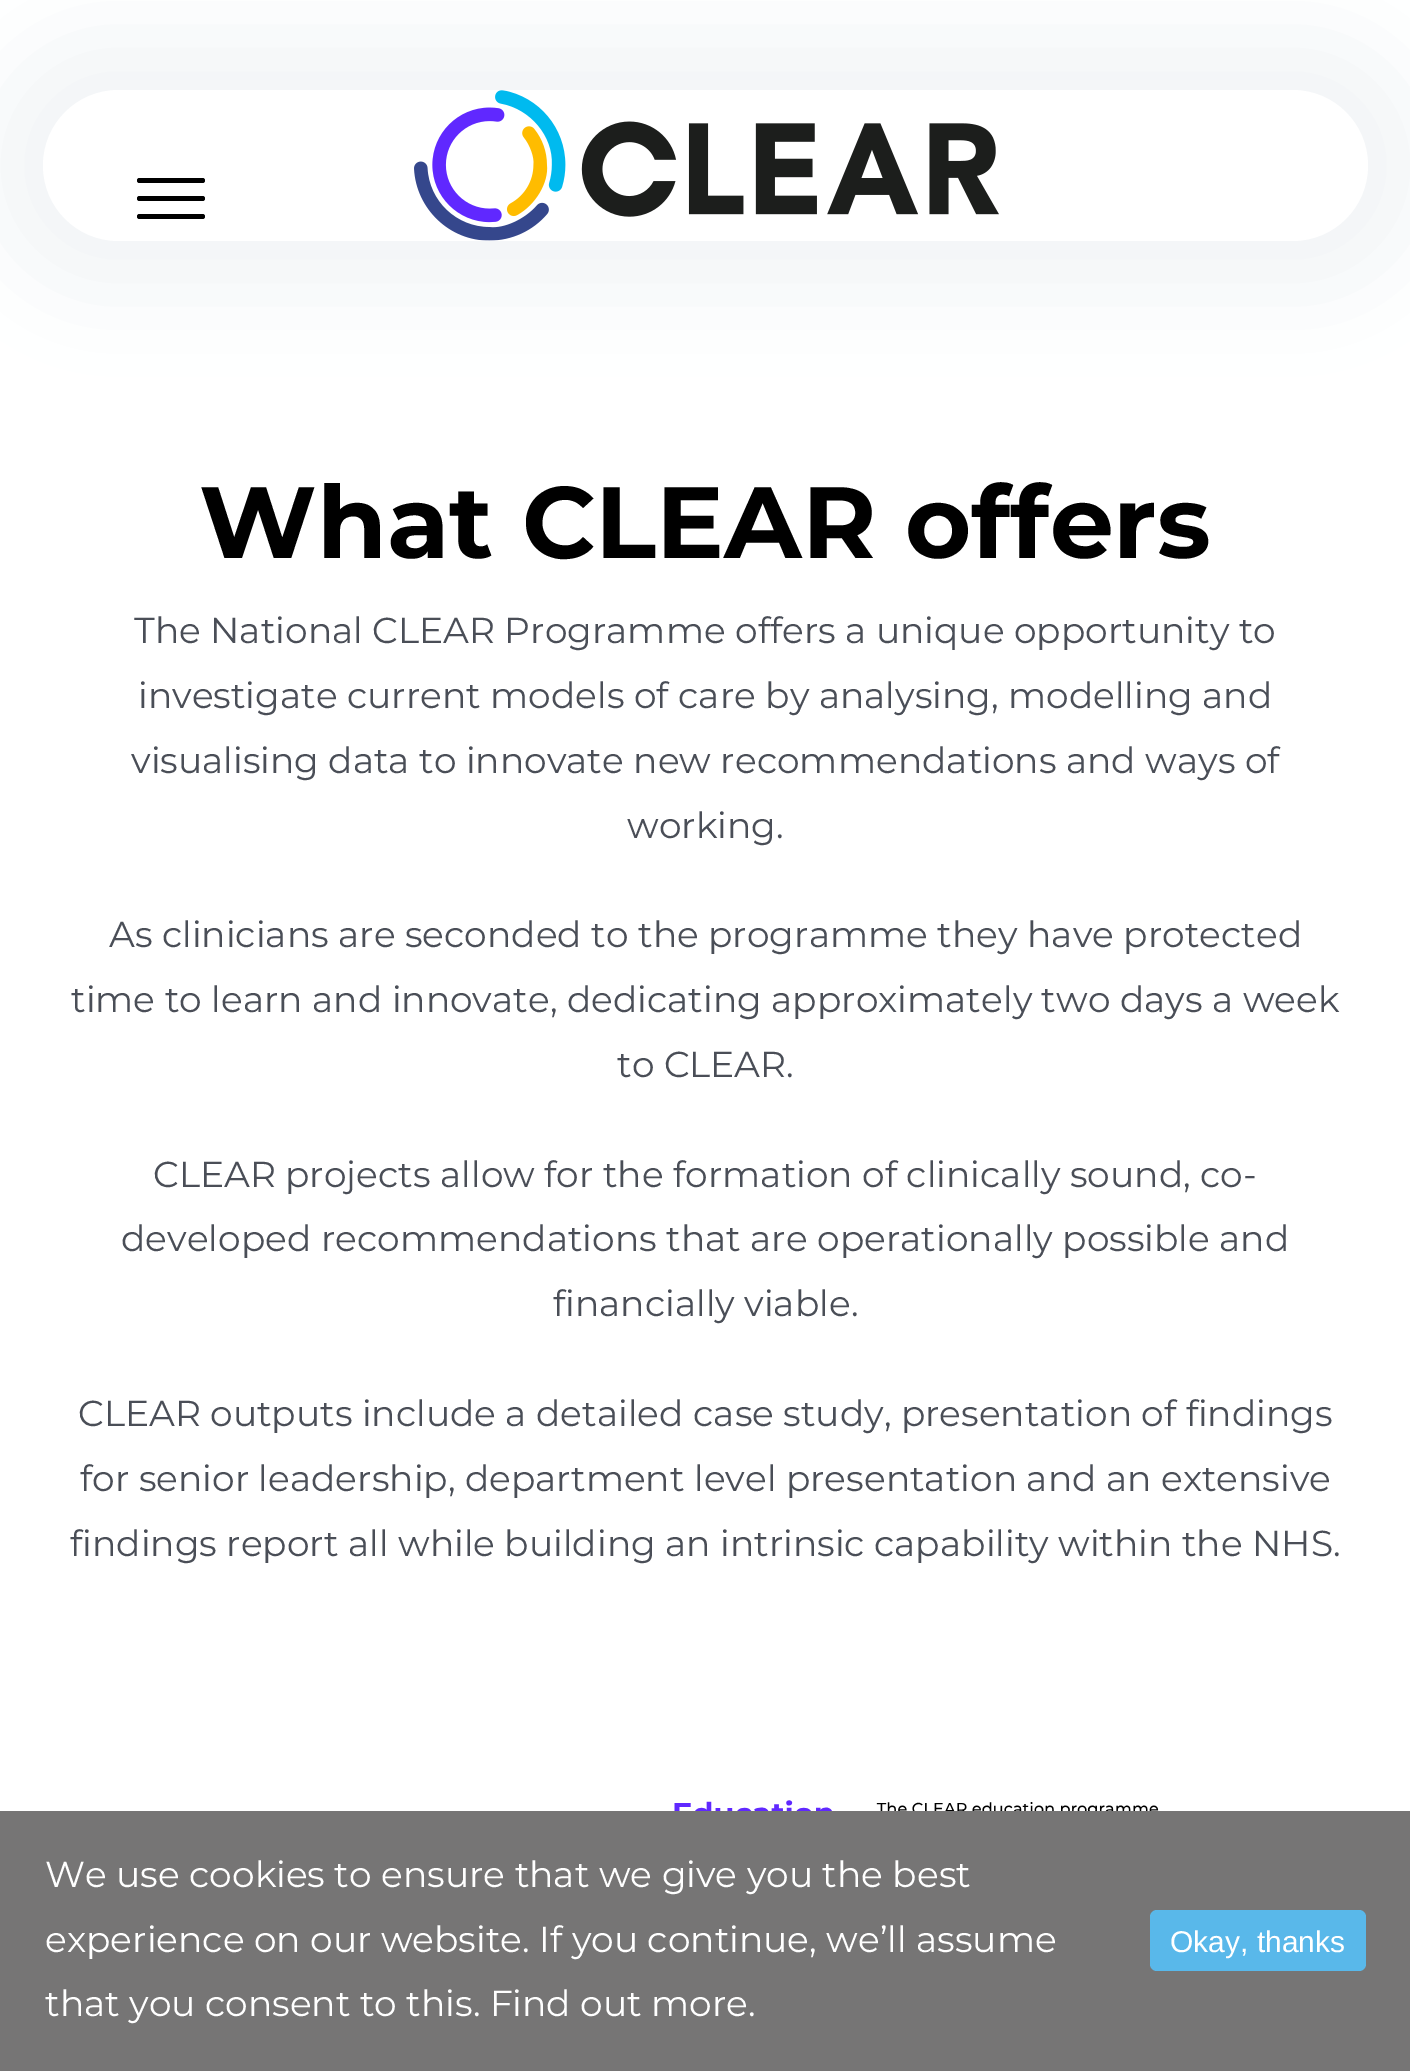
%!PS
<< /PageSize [1410 2071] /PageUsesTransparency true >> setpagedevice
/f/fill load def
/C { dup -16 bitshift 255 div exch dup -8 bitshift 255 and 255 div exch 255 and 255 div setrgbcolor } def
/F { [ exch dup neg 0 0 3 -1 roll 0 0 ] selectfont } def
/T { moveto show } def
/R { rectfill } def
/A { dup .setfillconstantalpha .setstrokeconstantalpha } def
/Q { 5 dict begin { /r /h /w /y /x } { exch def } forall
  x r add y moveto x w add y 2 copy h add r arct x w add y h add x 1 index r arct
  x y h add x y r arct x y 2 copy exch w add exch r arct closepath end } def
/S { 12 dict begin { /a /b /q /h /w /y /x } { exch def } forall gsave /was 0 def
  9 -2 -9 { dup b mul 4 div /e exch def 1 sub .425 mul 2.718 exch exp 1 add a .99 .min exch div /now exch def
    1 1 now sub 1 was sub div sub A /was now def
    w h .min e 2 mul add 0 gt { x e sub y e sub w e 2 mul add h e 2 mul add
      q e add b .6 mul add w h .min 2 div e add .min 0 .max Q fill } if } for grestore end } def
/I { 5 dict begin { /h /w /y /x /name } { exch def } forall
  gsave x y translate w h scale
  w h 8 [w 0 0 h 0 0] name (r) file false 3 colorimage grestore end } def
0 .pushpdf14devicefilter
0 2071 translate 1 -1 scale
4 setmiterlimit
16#FFFFFF C
0 0 1410 2071 R
16#F2F4F6 C
-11 36 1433 259 129.5 47 1 S
16#FFFFFF C
43 90 1325 151 75.5 Q f
16#000000 C
137 196 68 5 2.5 Q f
137 178 68 5 2.5 Q f
137 214 68 5 2.5 Q f
(1.rgb) 414 90 585 151 I
/Montserrat-Bold 101.25 F
(What CLEAR offers) 199 558 T
/Montserrat-Regular 36 F
16#4A4E57 C
(The National CLEAR Programme offers a unique opportunity to) 134 643 T
(investigate current models of care by analysing, modelling and) 138 708 T
(visualising data to innovate new recommendations and ways of) 131 773 T
(working.) 627 838 T
(As clinicians are seconded to the programme they have protected) 109 947 T
(time to learn and innovate, dedicating approximately two days a week) 71 1012 T
(to CLEAR.) 617 1077 T
(CLEAR projects allow for the formation of clinically sound, co-) 153 1187 T
(developed recommendations that are operationally possible and) 121 1251 T
(financially viable.) 553 1316 T
(CLEAR outputs include a detailed case study, presentation of findings) 78 1426 T
(for senior leadership, department level presentation and an extensive) 80 1491 T
(findings report all while building an intrinsic capability within the NHS.) 70 1556 T
(2.rgb) 674 1800 485 11 I
16#767575 C
0 1811 1410 260 R
16#FFFFFF C
(We use cookies to ensure that we give you the best) 45 1887 T
(experience on our website. If you continue, we’ll assume) 45 1952 T
(that you consent to this. Find out more.) 45 2016 T
16#59B8EA C
1150 1910 216 61 7 Q f
/LiberationSans-Regular 30 F
16#FFFFFF C
(Okay, thanks) 1170 1952 T
.poppdf14devicefilter showpage
